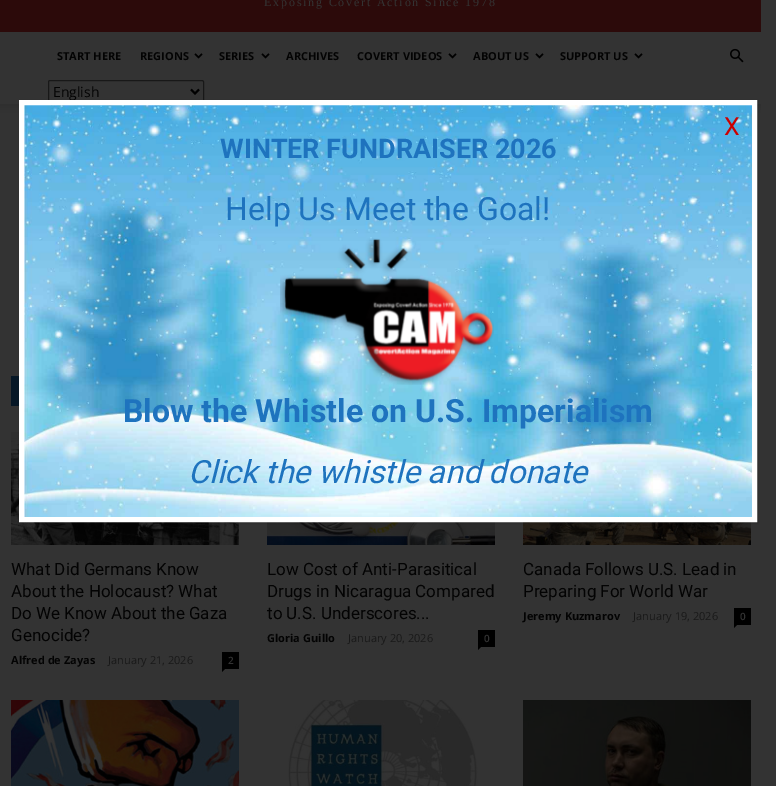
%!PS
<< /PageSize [776 786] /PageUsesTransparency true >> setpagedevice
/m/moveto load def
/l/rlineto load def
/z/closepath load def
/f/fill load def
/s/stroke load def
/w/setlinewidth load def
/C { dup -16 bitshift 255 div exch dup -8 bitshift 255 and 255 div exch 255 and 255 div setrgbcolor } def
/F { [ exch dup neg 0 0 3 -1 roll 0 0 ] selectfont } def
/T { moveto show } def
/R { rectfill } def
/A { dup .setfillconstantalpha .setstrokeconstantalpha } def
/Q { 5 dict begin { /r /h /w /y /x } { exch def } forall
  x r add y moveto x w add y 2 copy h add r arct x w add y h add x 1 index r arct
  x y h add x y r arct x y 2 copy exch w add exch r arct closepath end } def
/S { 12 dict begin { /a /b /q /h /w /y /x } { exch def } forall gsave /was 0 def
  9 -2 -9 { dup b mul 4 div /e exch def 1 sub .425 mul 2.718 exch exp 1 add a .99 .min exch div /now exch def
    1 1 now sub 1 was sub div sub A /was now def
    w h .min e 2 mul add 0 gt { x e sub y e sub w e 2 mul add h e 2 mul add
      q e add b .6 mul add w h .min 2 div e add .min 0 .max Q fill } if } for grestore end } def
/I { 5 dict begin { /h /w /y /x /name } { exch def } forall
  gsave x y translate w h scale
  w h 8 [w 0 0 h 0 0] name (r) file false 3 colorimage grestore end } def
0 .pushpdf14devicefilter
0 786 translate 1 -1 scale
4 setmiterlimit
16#333333 C
0 0 776 786 R
16#2C0A0A C
0 0 761 32 R
/LiberationSerif-Regular 12 F
16#333333 C
264 6 m 1.8 0 (Exposing Covert Action Since 1978) ashow
/OpenSans-Bold 11 F
16#030303 C
(START HERE) 57 60 T
(REGIONS) 140 60 T
(1.rgb) 194 53 9 6 I
(SERIES) 219 60 T
(1.rgb) 261 53 9 6 I
(ARCHIVES) 286 60 T
(COVERT VIDEOS) 357 60 T
(1.rgb) 448 53 9 6 I
(ABOUT US) 473 60 T
(1.rgb) 535 53 9 6 I
(SUPPORT US) 560 60 T
(1.rgb) 634 53 9 6 I
16#181818 C
48.5 80.5 155 22 1.5 Q s
16#000000 C
2 w
191 89.5 m 4 4 l 4 -4 l s
/OpenSans-Regular 14 F
16#030303 C
(English) 53 97 T
(2.rgb) 730 48 14 15 I
(3.rgb) 0 104 761 9 I
16#061726 C
11 376 8 30 R
(4.rgb) 11 432 228 113 I
/Roboto-Regular 17 F
16#030303 C
(What Did Germans Know) 11 575 T
(About the Holocaust? What) 11 597 T
(Do We Know About the Gaza) 11 619 T
(Genocide?) 11 641 T
/OpenSans-Bold 11 F
(Alfred de Zayas) 11 664 T
/OpenSans-Regular 11 F
16#181818 C
(January 21, 2026) 108 664 T
16#000000 C
222 652 17 17 R
/OpenSans-SemiBold 10 F
16#333333 C
(2) 228 664 T
16#000000 C
222 669 m 3 0 l -3 3 l z f
(5.rgb) 267 522 228 23 I
/Roboto-Regular 17 F
16#030303 C
(Low Cost of Anti-Parasitical) 267 575 T
(Drugs in Nicaragua Compared) 267 597 T
(to U.S. Underscores...) 267 619 T
/OpenSans-Bold 11 F
(Gloria Guillo) 267 642 T
/OpenSans-Regular 11 F
16#181818 C
(January 20, 2026) 348 642 T
16#000000 C
478 630 17 17 R
/OpenSans-SemiBold 10 F
16#333333 C
(0) 484 642 T
16#000000 C
478 647 m 3 0 l -3 3 l z f
(6.rgb) 523 522 228 23 I
/Roboto-Regular 17 F
16#030303 C
(Canada Follows U.S. Lead in) 523 575 T
(Preparing For World War) 523 597 T
/OpenSans-Bold 11 F
(Jeremy Kuzmarov) 523 620 T
/OpenSans-Regular 11 F
16#181818 C
(January 19, 2026) 633 620 T
16#000000 C
734 608 17 17 R
/OpenSans-SemiBold 10 F
16#333333 C
(0) 740 620 T
16#000000 C
734 625 m 3 0 l -3 3 l z f
(7.rgb) 11 700 228 86 I
(8.rgb) 288 700 190 86 I
(9.rgb) 523 700 228 86 I
16#020202 C
20 101 738 422 0 1.5 .23 S
(10.rgb) 24 105 728 412 I
16#FFFFFF C
5 w
21.5 102.5 733 417 rectstroke
/Roboto-Regular 25 F
16#CC0000 C
(X) 724 135 T
/Roboto-Bold 27 F
16#1E73BE C
(WINTER FUNDRAISER 2026) 220 158 T
/Roboto-Regular 32 F
(Help Us Meet the Goal!) 225 220 T
(11.rgb) 280 238 214 147 I
/Roboto-Bold 32 F
(Blow the Whistle on U.S. Imperialism) 123 422 T
/Roboto-Italic 32 F
(Click the whistle and donate) 188 483 T
.poppdf14devicefilter showpage
